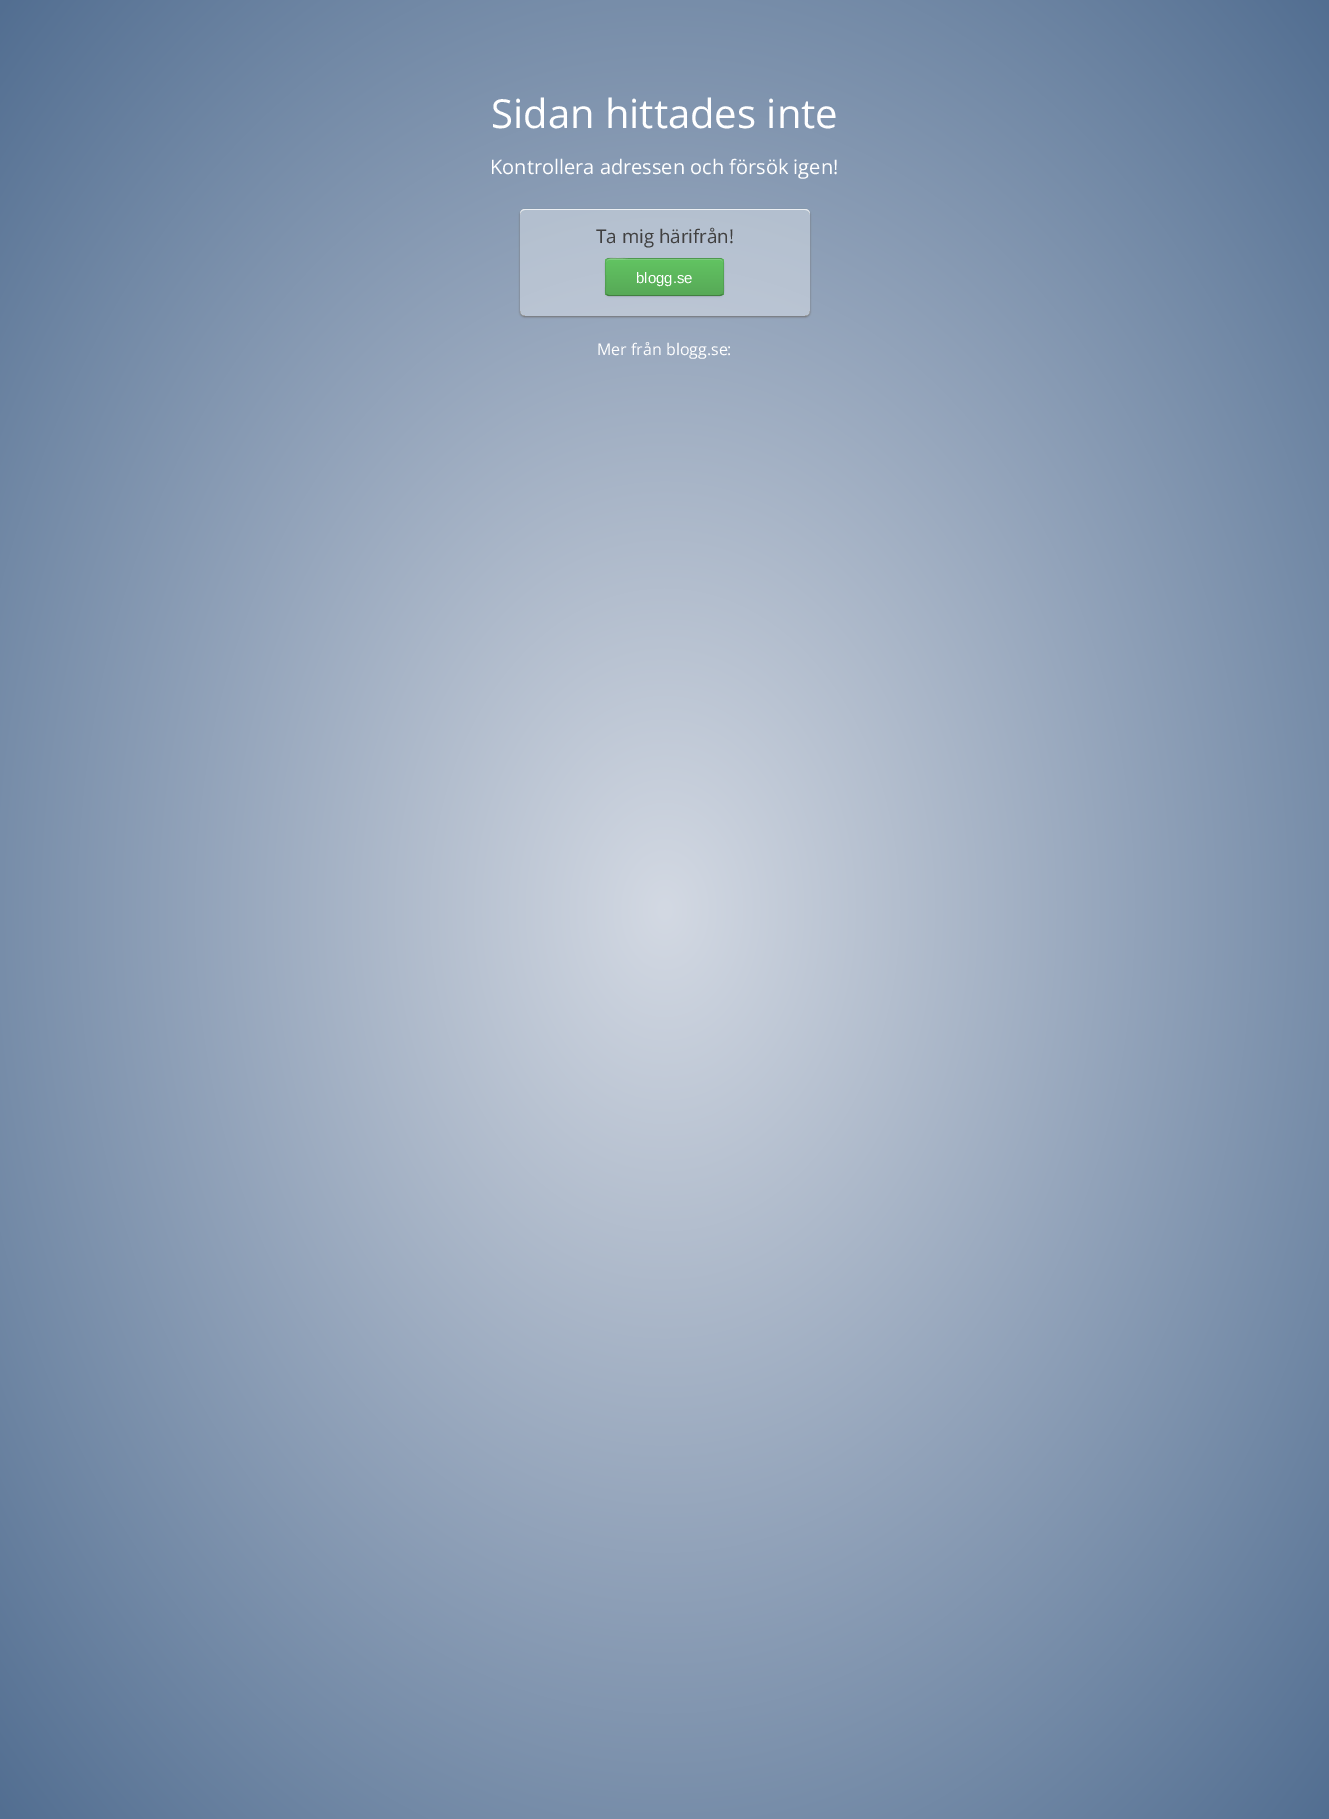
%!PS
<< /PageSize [1329 1819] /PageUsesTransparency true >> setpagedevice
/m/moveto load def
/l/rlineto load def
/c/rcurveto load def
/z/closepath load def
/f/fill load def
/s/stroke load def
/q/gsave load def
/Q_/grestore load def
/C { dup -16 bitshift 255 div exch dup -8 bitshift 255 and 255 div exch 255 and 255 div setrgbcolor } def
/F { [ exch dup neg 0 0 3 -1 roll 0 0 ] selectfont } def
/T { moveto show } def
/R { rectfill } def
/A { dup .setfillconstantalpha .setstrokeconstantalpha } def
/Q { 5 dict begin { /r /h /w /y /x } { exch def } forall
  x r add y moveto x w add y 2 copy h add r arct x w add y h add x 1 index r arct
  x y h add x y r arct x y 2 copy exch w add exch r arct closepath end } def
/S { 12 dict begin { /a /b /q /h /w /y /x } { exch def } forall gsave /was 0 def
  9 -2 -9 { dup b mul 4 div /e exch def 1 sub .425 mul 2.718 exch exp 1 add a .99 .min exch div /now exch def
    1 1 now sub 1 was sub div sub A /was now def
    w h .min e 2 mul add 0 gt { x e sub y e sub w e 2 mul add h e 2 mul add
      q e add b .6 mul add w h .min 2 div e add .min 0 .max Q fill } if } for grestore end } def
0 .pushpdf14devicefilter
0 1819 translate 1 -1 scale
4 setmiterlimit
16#FFFFFF C
0 0 1329 1819 R
q 0 0 m 1329 0 l 0 1819 l -1329 0 l z clip newpath 665 910 translate 940 1286 scale
<< /ShadingType 3 /ColorSpace /DeviceRGB /Coords [0 0 0 0 0 1] /Extend [true true] /Function << /FunctionType 2 /Domain [0 1] /C0 [.827 .851 .89] /C1 [.322 .431 .569] /N 1 >> >> shfill Q_
/OpenSans-Regular 40 F
(Sidan hittades inte) 491 128 T
/OpenSans-Regular 20 F
(Kontrollera adressen och försök igen!) 490 174 T
q
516 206 m 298 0 l 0 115 l -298 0 l z 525 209 m 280 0 l 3 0 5 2 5 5 c 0 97 l 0 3 -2 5 -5 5 c -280 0 l -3 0 -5 -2 -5 -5 c 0 -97 l 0 -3 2 -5 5 -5 c z eoclip newpath
16#707070 C
520 210 290 107 5 1 1 S
Q_
0.35 A
520 209 290 107 5 Q f
0.75 A
525 210 m 280 0 l 3 0 5 2 5 5 c 0 -1 l 0 -3 -2 -5 -5 -5 c -280 0 l -3 0 -5 2 -5 5 c 0 1 l 0 -3 2 -5 5 -5 c z f
/OpenSans-Regular 18.75 F
1 A
16#404040 C
(Ta mig härifrån!) 596 243 T
16#000000 C
605 259 119 38 4 1 .05 S
16#57A957 C
605 258 119 38 4 Q f
q
605 258 119 38 4 Q clip newpath
q 605 259 m 119 0 l 0 36 l -119 0 l z clip newpath
<< /ShadingType 2 /ColorSpace /DeviceRGB /Coords [665 259 665 295] /Extend [true true] /Function << /FunctionType 2 /Domain [0 1] /C0 [.384 .769 .384] /C1 [.341 .663 .341] /N 1 >> >> shfill Q_
Q_
0.2 A
16#FFFFFF C
609 260 m 111 0 l 2 0 3 1 3 3 c 0 -2 -1 -4 -3 -4 c -92 0 l -2 0 -22 -5 -22 4 c 0 -2 1 -3 3 -3 c z f
0.25 A
16#000000 C
722.5 294.5 m -2.5 1 l -111.5 0 l -2 -1 l s
0.1 A
606.5 294.5 m -2 -2 -1 -5.5 -1 -7.5 c 0 -10 l 0 -23 -3.5 -18.5 22 -18.5 c 92.5 0 l 4.5 0 3.5 6 3.5 8.5 c 0 15 l 0 2.5 1.5 10 -1 12.5 c s
/LiberationSans-Regular 15 F
1 A
16#FFFFFF C
(blogg.se) 636 283 T
/OpenSans-Regular 16 F
(Mer från blogg.se:) 597 355 T
.poppdf14devicefilter showpage
